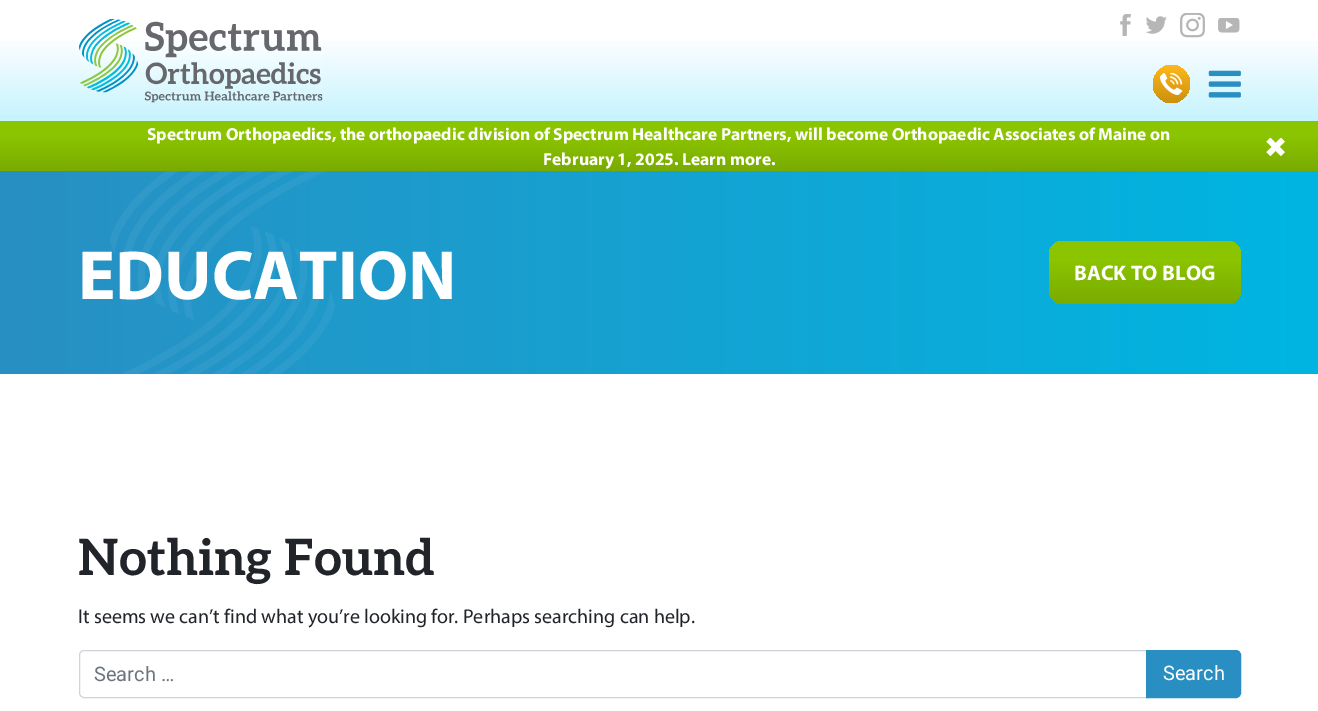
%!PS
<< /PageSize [1318 711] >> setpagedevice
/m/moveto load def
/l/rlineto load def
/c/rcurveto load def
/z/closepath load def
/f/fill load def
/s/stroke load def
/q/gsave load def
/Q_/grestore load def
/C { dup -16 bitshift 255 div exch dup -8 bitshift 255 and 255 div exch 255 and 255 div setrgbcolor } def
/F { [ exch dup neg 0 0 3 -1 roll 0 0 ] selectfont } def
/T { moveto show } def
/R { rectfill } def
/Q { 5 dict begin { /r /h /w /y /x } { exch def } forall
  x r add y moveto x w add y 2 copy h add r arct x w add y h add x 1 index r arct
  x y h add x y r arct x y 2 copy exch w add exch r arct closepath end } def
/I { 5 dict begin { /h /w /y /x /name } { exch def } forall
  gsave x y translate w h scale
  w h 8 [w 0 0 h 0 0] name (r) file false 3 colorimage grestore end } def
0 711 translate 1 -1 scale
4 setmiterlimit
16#FFFFFF C
0 0 1318 711 R
q 0 40 m 1318 0 l 0 81 l -1318 0 l z clip newpath
<< /ShadingType 2 /ColorSpace /DeviceRGB /Coords [659 121 659 0] /Extend [true true] /Function << /FunctionType 3 /Domain [0 1] /Functions [<< /FunctionType 2 /Domain [0 1] /C0 [.773 .953 .996] /C1 [1 1 1] /N 1 >> << /FunctionType 2 /Domain [0 1] /C0 [1 1 1] /C1 [1 1 1] /N 1 >>] /Bounds [.7] /Encode [0 1 0 1] >> >> shfill Q_
(1.rgb) 79 19 244 84 I
(2.rgb) 1120 14 11 22 I
(3.rgb) 1145 16 22 18 I
(4.rgb) 1180 13 25 25 I
(5.rgb) 1218 18 22 15 I
q 1153 65 37 38 18.5 Q clip newpath
<< /ShadingType 2 /ColorSpace /DeviceRGB /Coords [1171 103 1171 65] /Extend [true true] /Function << /FunctionType 2 /Domain [0 1] /C0 [.8 .565 .051] /C1 [1 .722 .11] /N 1 >> >> shfill Q_
(6.rgb) 1160 73 23 22 I
(7.rgb) 1208 70 33 28 I
q 0 121 m 1318 0 l 0 50 l -1318 0 l z clip newpath
<< /ShadingType 2 /ColorSpace /DeviceRGB /Coords [659 121 659 171] /Extend [true true] /Function << /FunctionType 3 /Domain [0 1] /Functions [<< /FunctionType 2 /Domain [0 1] /C0 [.545 .769 0] /C1 [.545 .769 0] /N 1 >> << /FunctionType 2 /Domain [0 1] /C0 [.545 .769 0] /C1 [.475 .671 0] /N 1 >>] /Bounds [.3] /Encode [0 1 0 1] >> >> shfill Q_
/Myriad-Bold 17.5 F
(Spectrum Orthopaedics, the orthopaedic division of Spectrum Healthcare Partners, will become Orthopaedic Associates of Maine on) 147 140 T
(February 1, 2025. Learn more.) 543 165 T
(8.rgb) 1266 138 19 18 I
q 0 171 m 1318 0 l 0 203 l -1318 0 l z clip newpath
<< /ShadingType 2 /ColorSpace /DeviceRGB /Coords [0 273 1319 272] /Extend [true true] /Function << /FunctionType 2 /Domain [0 1] /C0 [.161 .561 .761] /C1 [0 .71 .886] /N 1 >> >> shfill Q_
(9.rgb) 110 171 225 203 I
/Myriad-Bold 70 F
(EDUCATION) 78 299 T
q 1049 241 192 63 14 Q clip newpath
<< /ShadingType 2 /ColorSpace /DeviceRGB /Coords [1145 241 1145 304] /Extend [true true] /Function << /FunctionType 3 /Domain [0 1] /Functions [<< /FunctionType 2 /Domain [0 1] /C0 [.545 .769 0] /C1 [.545 .769 0] /N 1 >> << /FunctionType 2 /Domain [0 1] /C0 [.545 .769 0] /C1 [.475 .671 0] /N 1 >>] /Bounds [.3] /Encode [0 1 0 1] >> >> shfill Q_
/Myriad-Bold 21.25 F
(BACK TO BLOG) 1074 280 T
/Aleo-Bold 50 F
16#212529 C
(Nothing Found) 78 575 T
/Myriad-Regular 20 F
(It seems we can’t find what you’re looking for. Perhaps searching can help.) 78 623 T
16#CED4DA C
84 650.5 m 1063.5 0 l 0 47 l -1063.5 0 l -2.5 0 -4.5 -2 -4.5 -4.5 c 0 -38 l 0 -2.5 2 -4.5 4.5 -4.5 c z s
/Roboto-Regular 20 F
16#6C757D C
(Search …) 94 681 T
16#298FC2 C
1146.5 650.5 m 89.5 0 l 2.5 0 4.5 2 4.5 4.5 c 0 38 l 0 2.5 -2 4.5 -4.5 4.5 c -89.5 0 l z q f Q_
s
16#FFFFFF C
(Search) 1163 680 T
showpage
